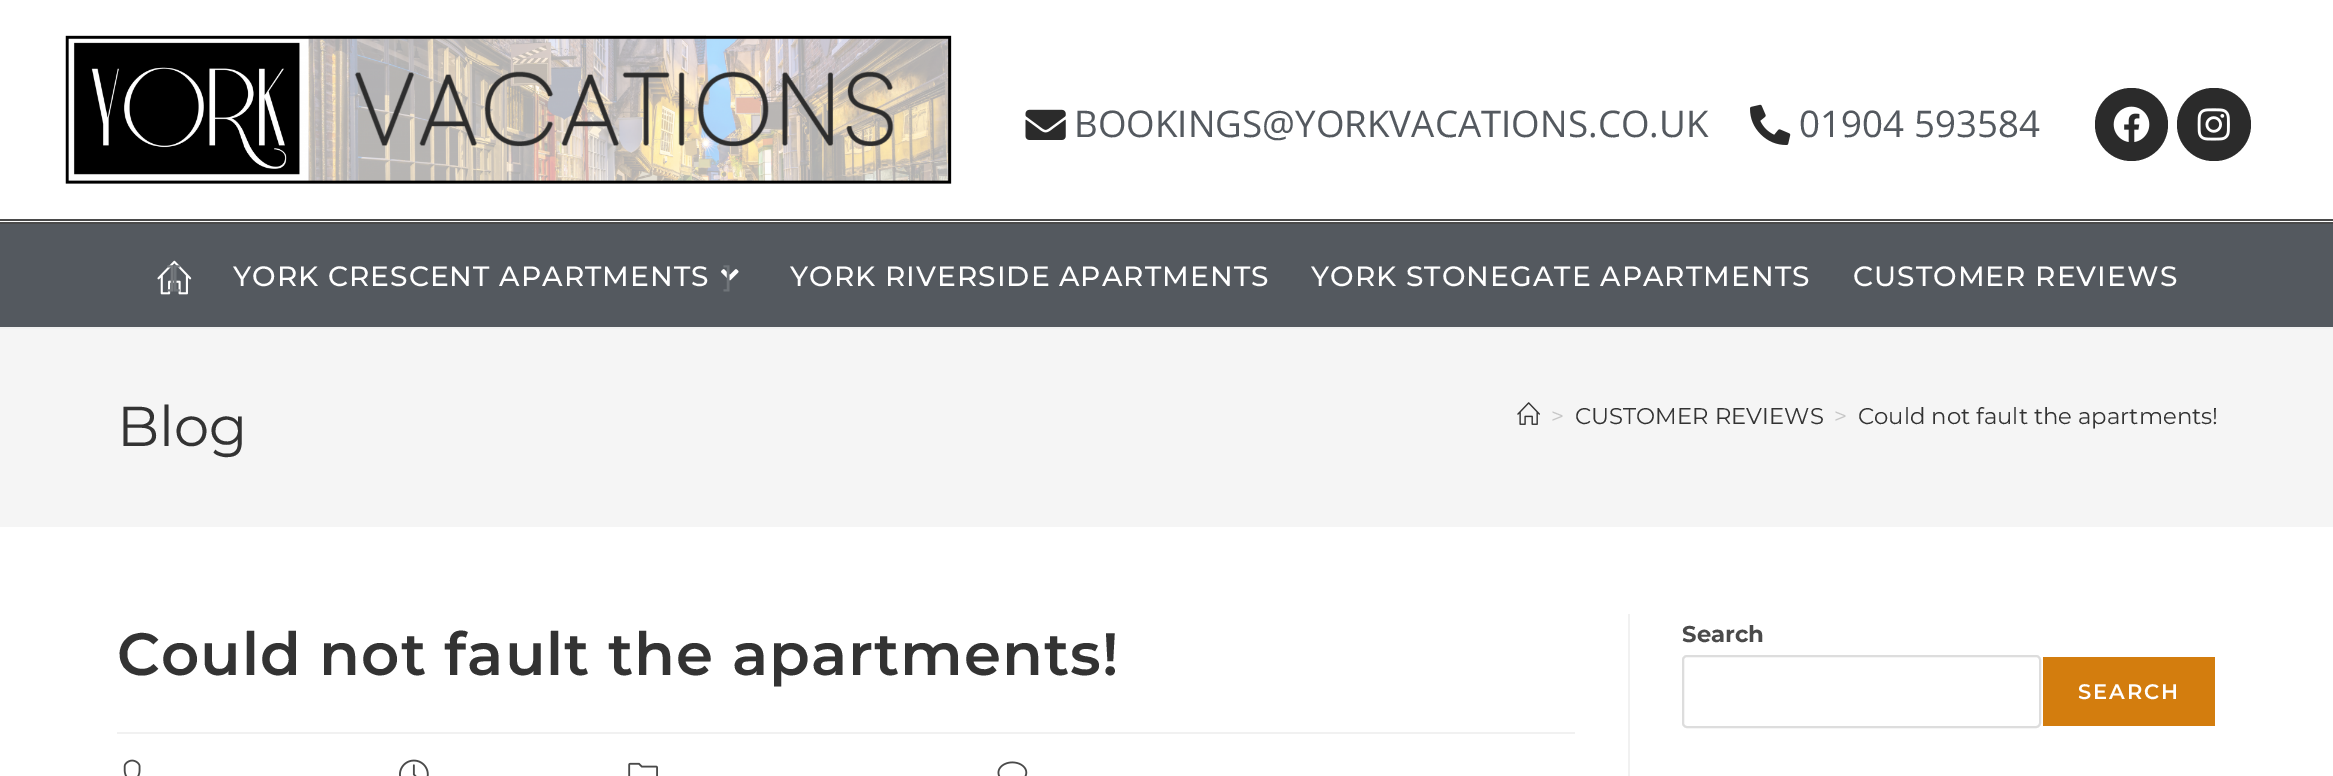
%!PS
<< /PageSize [2333 776] >> setpagedevice
/m/moveto load def
/f/fill load def
/s/stroke load def
/w/setlinewidth load def
/C { dup -16 bitshift 255 div exch dup -8 bitshift 255 and 255 div exch 255 and 255 div setrgbcolor } def
/F { [ exch dup neg 0 0 3 -1 roll 0 0 ] selectfont } def
/T { moveto show } def
/R { rectfill } def
/O { newpath 0 360 arc closepath } def
/Q { 5 dict begin { /r /h /w /y /x } { exch def } forall
  x r add y moveto x w add y 2 copy h add r arct x w add y h add x 1 index r arct
  x y h add x y r arct x y 2 copy exch w add exch r arct closepath end } def
/I { 5 dict begin { /h /w /y /x /name } { exch def } forall
  gsave x y translate w h scale
  w h 8 [w 0 0 h 0 0] name (r) file false 3 colorimage grestore end } def
0 776 translate 1 -1 scale
4 setmiterlimit
16#FFFFFF C
0 0 2333 776 R
16#F1F1F1 C
0 327 2333 2 R
16#4A4A4A C
0 219 2333 2 R
0 222 2333 2 R
(1.rgb) 65 35 887 149 I
(2.rgb) 1025 109 41 31 I
/OpenSans-Regular 36.75 F
16#54595F C
(BOOKINGS@YORKVACATIONS.CO.UK) 1074 137 T
(3.rgb) 1750 104 41 41 I
(01904 593584) 1799 137 T
16#2B2B2B C
2131.5 124.5 36.5 O f
(4.rgb) 2113 106 37 36 I
2177 88 74 73 36.5 Q f
(5.rgb) 2197 108 33 33 I
16#54595F C
0 224 2333 103 R
(6.rgb) 157 260 35 35 I
/Montserrat-Medium 28 F
16#6F7479 C
171 286 m 1.05 0 ([) ashow
16#767A7E C
167 286 m 1.05 0 (]) ashow
16#FFFFFF C
233 286 m 1.05 0 (YORK CRESCENT APARTMENTS) ashow
(7.rgb) 721 269 18 12 I
16#6F7479 C
723 286 m 1.05 0 (]) ashow
16#FFFFFF C
790 286 m 1.05 0 (YORK RIVERSIDE APARTMENTS) ashow
1311 286 m 1.05 0 (YORK STONEGATE APARTMENTS) ashow
1853 286 m 1.05 0 (CUSTOMER REVIEWS) ashow
16#F5F5F5 C
0 329 2333 198 R
/Montserrat-Regular 56 F
16#333333 C
(Blog) 117 446 T
(8.rgb) 1517 402 23 23 I
/Montserrat-Regular 22.75 F
16#C6C6C6 C
(>) 1551 424 T
16#333333 C
(CUSTOMER REVIEWS) 1575 424 T
16#C6C6C6 C
(>) 1834 424 T
16#333333 C
(Could not fault the apartments!) 1858 424 T
16#F1F1F1 C
1628 614 2 162 R
117 732 1458 2 R
/Montserrat-SemiBold 59.5 F
16#333333 C
117 675 m 1.05 0 (Could not fault the apartments!) ashow
(9.rgb) 123 759 18 17 I
(10.rgb) 399 759 30 17 I
(11.rgb) 628 762 30 14 I
(12.rgb) 997 761 31 15 I
/Montserrat-Bold 22.75 F
16#4A4A4A C
(Search) 1682 642 T
16#DDDDDD C
2 w
1683 656 357 71 4 Q s
16#D37D0E C
2043 657 172 69 R
/Montserrat-SemiBold 21 F
16#FFFFFF C
2078 699 m 2 0 (SEARCH) ashow
showpage
